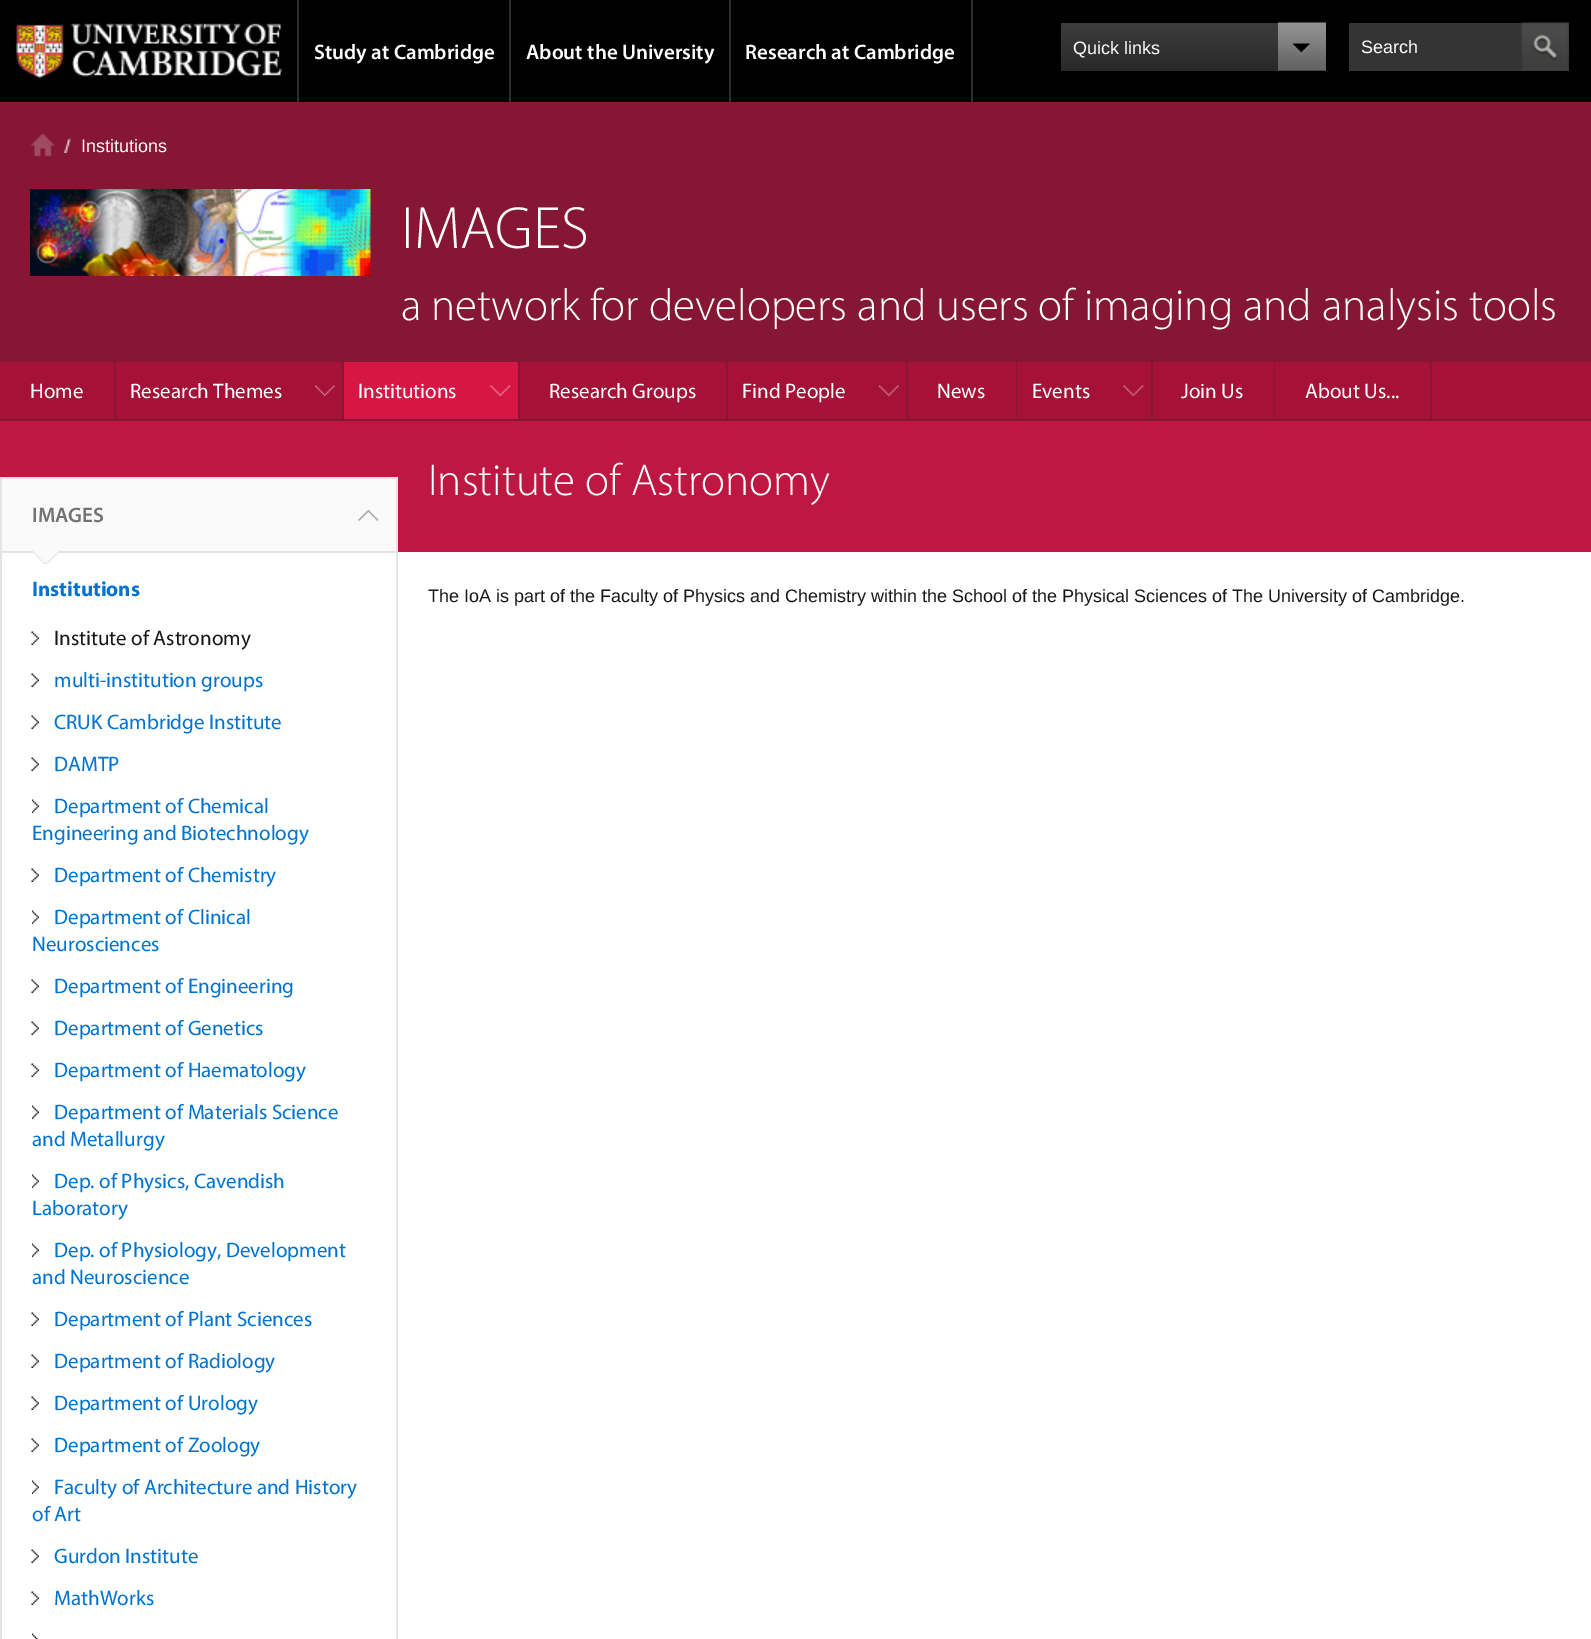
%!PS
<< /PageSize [1591 1639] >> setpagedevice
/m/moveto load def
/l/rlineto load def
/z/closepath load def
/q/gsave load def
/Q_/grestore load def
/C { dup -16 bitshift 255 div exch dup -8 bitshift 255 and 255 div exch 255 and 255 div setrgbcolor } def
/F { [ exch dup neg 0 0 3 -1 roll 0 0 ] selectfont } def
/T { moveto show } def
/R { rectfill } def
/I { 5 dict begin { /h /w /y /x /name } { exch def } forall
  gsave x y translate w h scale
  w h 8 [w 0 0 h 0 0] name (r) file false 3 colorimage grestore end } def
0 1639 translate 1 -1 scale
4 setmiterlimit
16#000000 C
0 0 1591 1639 R
(1.rgb) 16 23 266 56 I
16#2E2E2E C
297 0 2 102 R
509 0 2 102 R
/Myriad-SemiBold 21 F
16#FFFFFF C
(Study at Cambridge) 314 59 T
16#2E2E2E C
729 0 2 102 R
16#FFFFFF C
(About the University) 526 59 T
16#2E2E2E C
971 0 2 102 R
16#FFFFFF C
(Research at Cambridge) 745 59 T
q 1061 23 m 265 0 l 0 48 l -265 0 l z clip newpath
<< /ShadingType 2 /ColorSpace /DeviceRGB /Coords [1193 22 1193 71] /Extend [true true] /Function << /FunctionType 2 /Domain [0 1] /C0 [.239 .239 .239] /C1 [.161 .161 .161] /N 1 >> >> shfill Q_
/LiberationSans-Regular 18 F
(Quick links) 1073 54 T
(2.rgb) 1278 22 48 49 I
16#343434 C
1349 23 220 48 R
16#FFFFFF C
(Search) 1361 53 T
(3.rgb) 1521 22 48 49 I
16#851735 C
0 102 1591 258 R
(4.rgb) 31 133 24 24 I
(5.rgb) 64 138 7 15 I
16#FFFFFF C
(Institutions) 81 152 T
(6.rgb) 30 189 341 87 I
/Myriad-Light 60 F
(IMAGES) 401 248 T
/Myriad-Light 45 F
(a network for developers and users of imaging and analysis tools) 401 320 T
16#A51137 C
1432 362 159 57 R
16#851735 C
1432 360 159 2 R
1431 419 160 2 R
16#A51137 C
0 362 114 57 R
16#851735 C
0 360 344 2 R
114 360 2 60 R
0 419 116 2 R
/Myriad-Regular 21 F
16#FFFFFF C
(Home) 30 398 T
16#A51137 C
116 362 226 57 R
(7.rgb) 315 385 20 11 I
16#851735 C
342 360 2 60 R
116 419 228 2 R
16#FFFFFF C
(Research Themes) 130 398 T
16#D61746 C
344 362 174 57 R
(8.rgb) 490 385 21 11 I
16#851735 C
344 360 384 2 R
726 360 2 60 R
519 419 209 2 R
518 360 2 60 R
344 419 175 2 R
16#FFFFFF C
(Institutions) 358 398 T
16#A51137 C
520 362 206 57 R
16#FFFFFF C
(Research Groups) 549 398 T
16#A51137 C
728 362 178 57 R
(9.rgb) 879 385 20 11 I
16#851735 C
728 360 289 2 R
906 360 2 60 R
728 419 180 2 R
16#FFFFFF C
(Find People) 742 398 T
16#A51137 C
908 362 108 57 R
16#851735 C
1016 360 1 60 R
908 419 109 2 R
16#FFFFFF C
(News) 937 398 T
16#A51137 C
1017 362 134 57 R
(10.rgb) 1123 385 21 11 I
16#851735 C
1017 360 414 2 R
1274 360 1 60 R
1152 419 123 2 R
1151 360 2 60 R
1017 419 135 2 R
16#FFFFFF C
(Events) 1032 398 T
16#A51137 C
1153 362 121 57 R
16#FFFFFF C
(Join Us) 1181 398 T
16#A51137 C
1275 362 155 57 R
16#851735 C
1430 360 2 60 R
1275 419 156 2 R
16#FFFFFF C
(About Us...) 1305 398 T
16#BE1741 C
0 421 1591 131 R
/Myriad-Light 45 F
16#FFFFFF C
(Institute of Astronomy) 428 495 T
398 552 1193 1087 R
16#E4E4E4 C
0 477 398 2 R
396 477 2 1162 R
0 477 2 1162 R
16#FFFFFF C
2 553 394 1086 R
16#FAFAFA C
2 479 394 72 R
(11.rgb) 358 510 20 11 I
16#E4E4E4 C
2 551 394 2 R
/Myriad-SemiBold 21 F
16#737373 C
(IMAGES) 32 522 T
(12.rgb) 31 550 29 15 I
/Myriad-Bold 21 F
16#0072CF C
(Institutions) 32 596 T
(13.rgb) 31 631 8 14 I
/Myriad-Regular 21 F
16#171717 C
(Institute of Astronomy) 54 645 T
(13.rgb) 31 673 8 14 I
16#0072CF C
(multi-institution groups) 54 687 T
(13.rgb) 31 715 8 14 I
(CRUK Cambridge Institute) 54 729 T
(13.rgb) 31 757 8 14 I
(DAMTP) 54 771 T
(14.rgb) 32 799 7 14 I
(Department of Chemical) 54 813 T
(Engineering and Biotechnology) 32 840 T
(13.rgb) 31 868 8 14 I
(Department of Chemistry) 54 882 T
(14.rgb) 32 910 7 14 I
(Department of Clinical) 54 924 T
(Neurosciences) 32 951 T
(13.rgb) 31 979 8 14 I
(Department of Engineering) 54 993 T
(13.rgb) 31 1021 8 14 I
(Department of Genetics) 54 1035 T
(13.rgb) 31 1063 8 14 I
(Department of Haematology) 54 1077 T
(14.rgb) 32 1105 7 14 I
(Department of Materials Science) 54 1119 T
(and Metallurgy) 32 1146 T
(14.rgb) 32 1174 7 14 I
(Dep. of Physics, Cavendish) 54 1188 T
(Laboratory) 32 1215 T
(14.rgb) 32 1243 7 14 I
(Dep. of Physiology, Development) 54 1257 T
(and Neuroscience) 32 1284 T
(13.rgb) 31 1312 8 14 I
(Department of Plant Sciences) 54 1326 T
(13.rgb) 31 1354 8 14 I
(Department of Radiology) 54 1368 T
(13.rgb) 31 1396 8 14 I
(Department of Urology) 54 1410 T
(13.rgb) 31 1438 8 14 I
(Department of Zoology) 54 1452 T
(14.rgb) 32 1480 7 14 I
(Faculty of Architecture and History) 54 1494 T
(of Art) 32 1521 T
(13.rgb) 31 1549 8 14 I
(Gurdon Institute) 54 1563 T
(13.rgb) 31 1591 8 14 I
(MathWorks) 54 1605 T
(15.rgb) 32 1633 6 6 I
/LiberationSans-Regular 18 F
16#171717 C
(The IoA is part of the Faculty of Physics and Chemistry within the School of the Physical Sciences of The University of Cambridge.) 428 602 T
showpage
